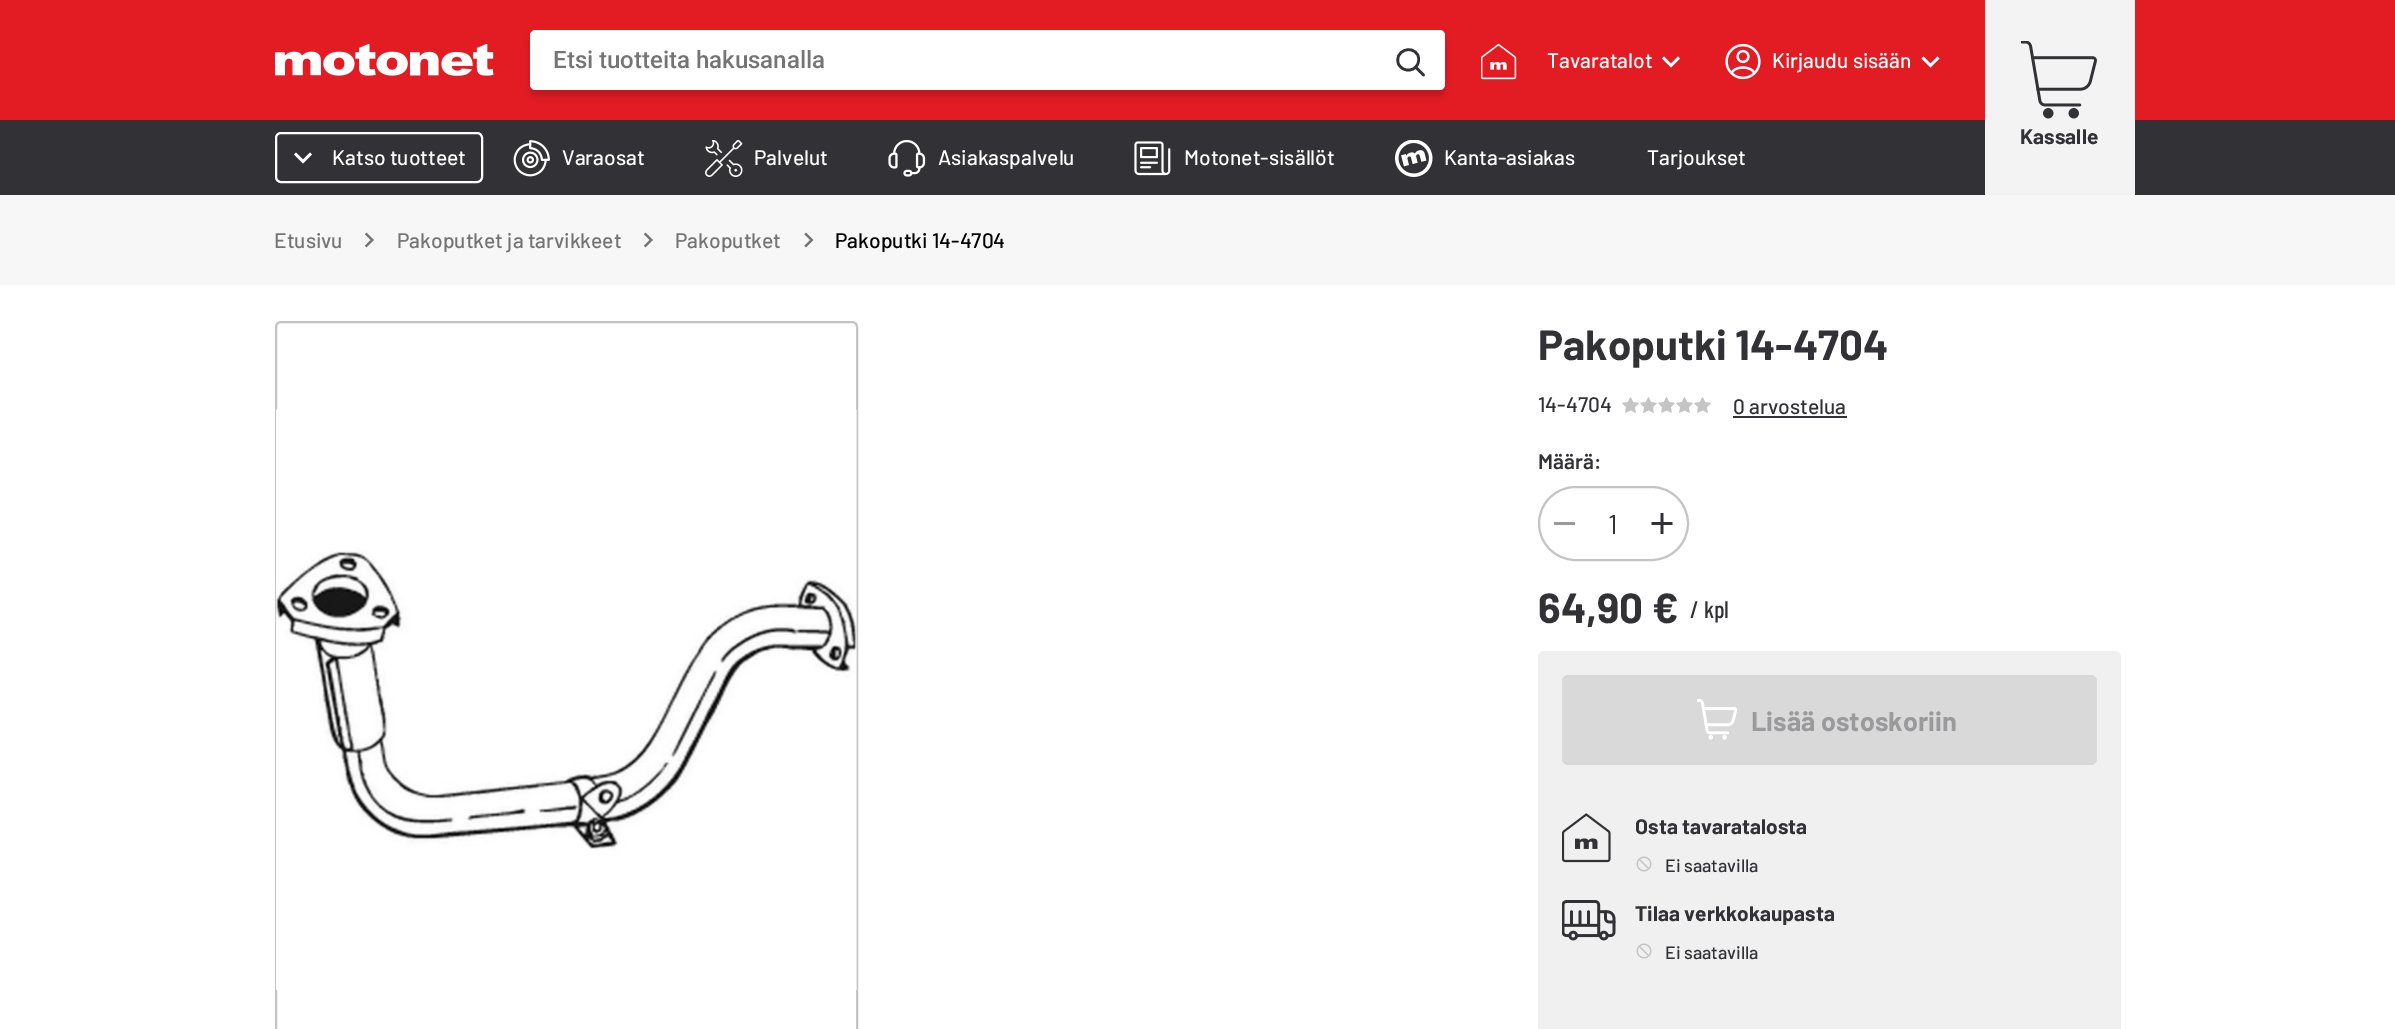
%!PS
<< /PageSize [2395 1029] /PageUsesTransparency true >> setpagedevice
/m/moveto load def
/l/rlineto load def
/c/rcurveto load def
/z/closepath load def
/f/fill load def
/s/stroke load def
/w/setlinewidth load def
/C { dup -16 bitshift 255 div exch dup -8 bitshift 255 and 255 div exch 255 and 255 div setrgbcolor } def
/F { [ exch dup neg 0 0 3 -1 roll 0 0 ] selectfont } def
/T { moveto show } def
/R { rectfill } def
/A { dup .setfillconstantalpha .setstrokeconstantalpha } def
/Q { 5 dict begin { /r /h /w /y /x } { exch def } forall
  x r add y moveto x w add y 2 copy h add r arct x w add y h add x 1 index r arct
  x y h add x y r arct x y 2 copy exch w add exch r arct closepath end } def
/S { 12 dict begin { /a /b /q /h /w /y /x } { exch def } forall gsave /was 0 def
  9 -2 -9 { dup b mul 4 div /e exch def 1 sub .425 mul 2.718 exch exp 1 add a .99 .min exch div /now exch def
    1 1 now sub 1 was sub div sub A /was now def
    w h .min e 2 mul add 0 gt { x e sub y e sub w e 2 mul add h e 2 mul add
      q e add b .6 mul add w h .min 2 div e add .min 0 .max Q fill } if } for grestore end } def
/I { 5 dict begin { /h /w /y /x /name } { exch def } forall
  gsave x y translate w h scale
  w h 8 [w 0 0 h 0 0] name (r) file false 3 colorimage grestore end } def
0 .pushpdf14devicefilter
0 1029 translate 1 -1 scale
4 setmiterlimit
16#FFFFFF C
0 0 2395 1029 R
16#E31B23 C
0 0 2395 120 R
(1.rgb) 275 44 219 32 I
16#000000 C
530 36 915 60 6 3 .15 S
16#FFFFFF C
530 30 915 60 6 Q f
530 30 849 60 6 Q f
/Roboto-Medium 24 F
16#747474 C
(Etsi tuotteita hakusanalla) 553 68 T
16#FFFFFF C
1379 30 m 60 0 l 3.5 0 6 2.5 6 6 c 0 48 l 0 3.5 -2.5 6 -6 6 c -60 0 l z f
16#323236 C
2.6 w
1 setlinecap
1 setlinejoin
1398.5 64 m 4.5 9.5 19 7.5 20 -3 c .5 -1.5 0 -3.5 -.5 -5.5 c -6 -12 -24.5 -4 -19.5 8.5 c 1415.5 67 m 8 8 l s
(2.rgb) 1481 44 36 36 I
/Barlow-Medium 21 F
16#FFFFFF C
(Tavaratalot) 1547 68 T
1678 56.5 m -7 7 l -7 -7 l -2 2 l 9 9 l 9 -9 l z f
(3.rgb) 1725 44 36 36 I
(Kirjaudu sisään) 1772 68 T
1937.5 56.5 m -7 7 l -7 -7 l -2 2 l 9 9 l 9 -9 l z f
16#323236 C
0 120 2395 75 R
16#F3F3F3 C
1985 0 150 195 R
(4.rgb) 2021 41 76 78 I
/Barlow-Bold 21 F
16#323236 C
(Kassalle) 2020 144 T
16#FFFFFF C
2 w
0 setlinecap
0 setlinejoin
276 133 206 49 5 Q s
296 152.5 m 7 7 l 7 -7 l 2 2 l -9 9 l -9 -9 l z f
/Barlow-Medium 21 F
(Katso tuotteet) 332 165 T
(5.rgb) 513 140 37 37 I
(Varaosat) 562 165 T
(6.rgb) 705 140 38 37 I
(Palvelut) 754 165 T
(7.rgb) 888 140 38 37 I
(Asiakaspalvelu) 938 165 T
(8.rgb) 1134 141 37 35 I
(Motonet-sisällöt) 1184 165 T
(9.rgb) 1395 140 38 37 I
(Kanta-asiakas) 1444 165 T
(Tarjoukset) 1647 165 T
16#F7F7F7 C
0 195 2395 90 R
16#747474 C
(Etusivu) 274 248 T
(10.rgb) 364 232 10 16 I
(Pakoputket ja tarvikkeet) 397 248 T
(10.rgb) 643 232 10 16 I
(Pakoputket) 675 248 T
(11.rgb) 804 232 10 16 I
16#000000 C
(Pakoputki 14-4704) 835 248 T
16#C4C4C4 C
276 322 581 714 5 Q s
(12.rgb) 276 409 581 581 I
/Barlow-Bold 42 F
16#323236 C
(Pakoputki 14-4704) 1538 360 T
/Barlow-Medium 21 F
(14-4704) 1538 412 T
(13.rgb) 1622 397 17 16 I
(13.rgb) 1640 397 17 16 I
(13.rgb) 1658 397 17 16 I
(13.rgb) 1676 397 17 16 I
(13.rgb) 1694 397 17 16 I
(0 arvostelua) 1733 414 T
1733 416 114 2 R
/Barlow-SemiBold 21 F
(Määrä:) 1538 469 T
16#C4C4C4 C
1539 487 149 73 36.5 Q s
16#99999B C
1554 522 21 3 R
/Barlow-Regular 27 F
16#323236 C
(1) 1608 534 T
(14.rgb) 1651 513 22 21 I
/Barlow-Bold 42 F
(64,90 €) 1538 623 T
/BarlowCondensed-Medium 24 F
(/ kpl) 1690 618 T
16#F0F0F0 C
1538 651 583 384 6 Q f
16#D9D9DA C
1562 675 535 90 6 Q f
(15.rgb) 1697 699 41 41 I
/Barlow-Bold 27 F
16#9A9A9C C
(Lisää ostoskoriin) 1751 731 T
(16.rgb) 1562 813 49 50 I
/Barlow-Bold 21 F
16#323236 C
(Osta tavaratalosta) 1635 834 T
(17.rgb) 1636 856 16 16 I
/Barlow-Medium 18 F
(Ei saatavilla) 1665 872 T
(18.rgb) 1562 900 54 41 I
/Barlow-Bold 21 F
(Tilaa verkkokaupasta) 1635 921 T
(17.rgb) 1636 943 16 16 I
/Barlow-Medium 18 F
(Ei saatavilla) 1665 959 T
.poppdf14devicefilter showpage
